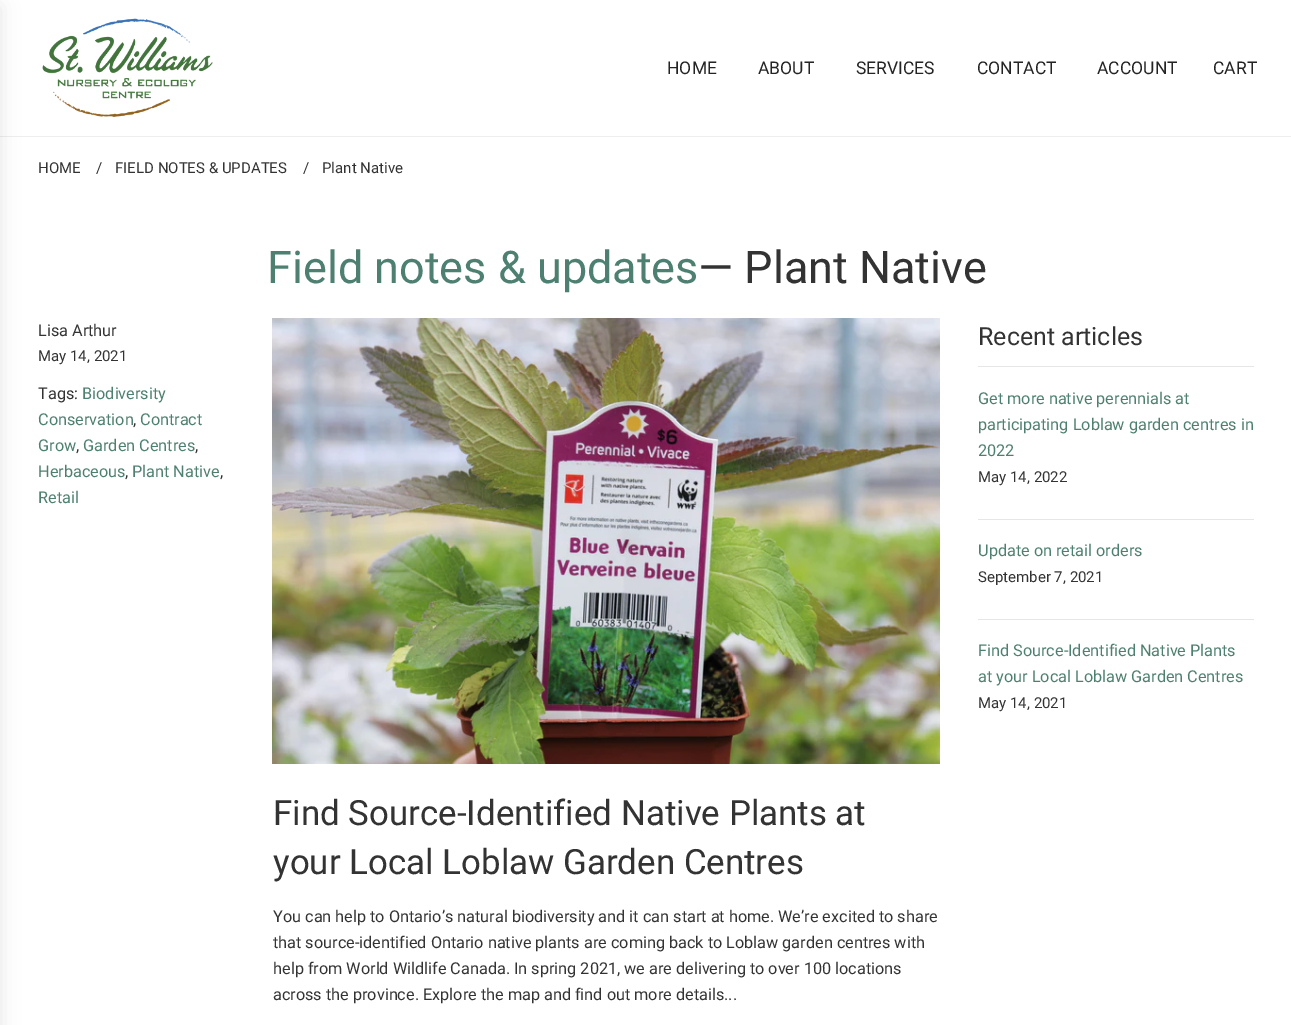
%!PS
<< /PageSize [1291 1025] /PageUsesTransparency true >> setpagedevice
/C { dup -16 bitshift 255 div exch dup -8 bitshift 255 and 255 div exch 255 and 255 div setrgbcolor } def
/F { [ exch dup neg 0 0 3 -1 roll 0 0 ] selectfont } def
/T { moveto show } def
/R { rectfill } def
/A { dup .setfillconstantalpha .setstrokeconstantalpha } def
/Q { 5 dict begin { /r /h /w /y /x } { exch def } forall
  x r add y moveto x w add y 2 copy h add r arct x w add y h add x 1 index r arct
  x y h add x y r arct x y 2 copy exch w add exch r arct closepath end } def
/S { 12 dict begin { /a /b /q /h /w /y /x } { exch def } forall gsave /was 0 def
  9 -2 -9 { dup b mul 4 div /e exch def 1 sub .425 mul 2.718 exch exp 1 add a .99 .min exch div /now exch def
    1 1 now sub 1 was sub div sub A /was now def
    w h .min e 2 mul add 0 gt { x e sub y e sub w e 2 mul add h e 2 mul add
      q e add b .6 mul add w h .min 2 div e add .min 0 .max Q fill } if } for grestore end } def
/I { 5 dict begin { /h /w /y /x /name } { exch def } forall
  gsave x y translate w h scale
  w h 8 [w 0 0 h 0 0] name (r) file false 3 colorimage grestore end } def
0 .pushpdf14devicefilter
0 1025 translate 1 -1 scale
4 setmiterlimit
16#FFFFFF C
0 0 1291 1025 R
16#EEEEEE C
0 136 1291 1 R
16#000000 C
-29 6 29 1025 0 9.5 .1 S
(1.rgb) 42 18 171 99 I
/Roboto-Regular 17.5 F
16#242424 C
(HOME) 667 74 T
(ABOUT) 758 74 T
(SERVICES) 856 74 T
(CONTACT) 977 74 T
(ACCOUNT) 1097 74 T
(CART) 1213 74 T
/Roboto-Regular 15 F
16#333333 C
(HOME) 38 173 T
(/) 96 173 T
(FIELD NOTES & UPDATES) 115 173 T
(/) 303 173 T
(Plant Native) 322 173 T
/Roboto-Regular 45 F
16#4D8070 C
(Field notes & updates) 267 283 T
16#333333 C
(— Plant Native) 698 283 T
/Roboto-Regular 16.25 F
(Lisa Arthur) 38 336 T
/Roboto-Regular 15 F
(May 14, 2021) 38 361 T
/Roboto-Regular 16.25 F
(Tags:) 38 399 T
16#4D8070 C
(Biodiversity) 82 399 T
(Conservation) 38 425 T
16#333333 C
(,) 133 425 T
16#4D8070 C
(Contract) 140 425 T
(Grow) 38 451 T
16#333333 C
(,) 76 451 T
16#4D8070 C
(Garden Centres) 83 451 T
16#333333 C
(,) 195 451 T
16#4D8070 C
(Herbaceous) 38 477 T
16#333333 C
(,) 125 477 T
16#4D8070 C
(Plant Native) 132 477 T
16#333333 C
(,) 220 477 T
16#4D8070 C
(Retail) 38 503 T
(2.rgb) 272 318 668 446 I
/Roboto-Regular 34.9 F
16#333333 C
(Find Source-Identified Native Plants at) 273 825 T
(your Local Loblaw Garden Centres) 273 874 T
/Roboto-Regular 16.25 F
(You can help to Ontario’s natural biodiversity and it can start at home. We’re excited to share) 273 922 T
(that source-identified Ontario native plants are coming back to Loblaw garden centres with) 273 948 T
(help from World Wildlife Canada. In spring 2021, we are delivering to over 100 locations) 273 974 T
(across the province. Explore the map and find out more details...) 273 1000 T
/Roboto-Regular 25 F
(Recent articles) 978 345 T
16#E6E6E6 C
978 366 276 1 R
/Roboto-Regular 16.25 F
16#4D8070 C
(Get more native perennials at) 978 404 T
(participating Loblaw garden centres in) 978 430 T
(2022) 978 456 T
/Roboto-Regular 15 F
16#333333 C
(May 14, 2022) 978 482 T
16#E6E6E6 C
978 519 276 1 R
/Roboto-Regular 16.25 F
16#4D8070 C
(Update on retail orders) 978 556 T
/Roboto-Regular 15 F
16#333333 C
(September 7, 2021) 978 582 T
16#E6E6E6 C
978 619 276 1 R
/Roboto-Regular 16.25 F
16#4D8070 C
(Find Source-Identified Native Plants) 978 656 T
(at your Local Loblaw Garden Centres) 978 682 T
/Roboto-Regular 15 F
16#333333 C
(May 14, 2021) 978 708 T
.poppdf14devicefilter showpage
